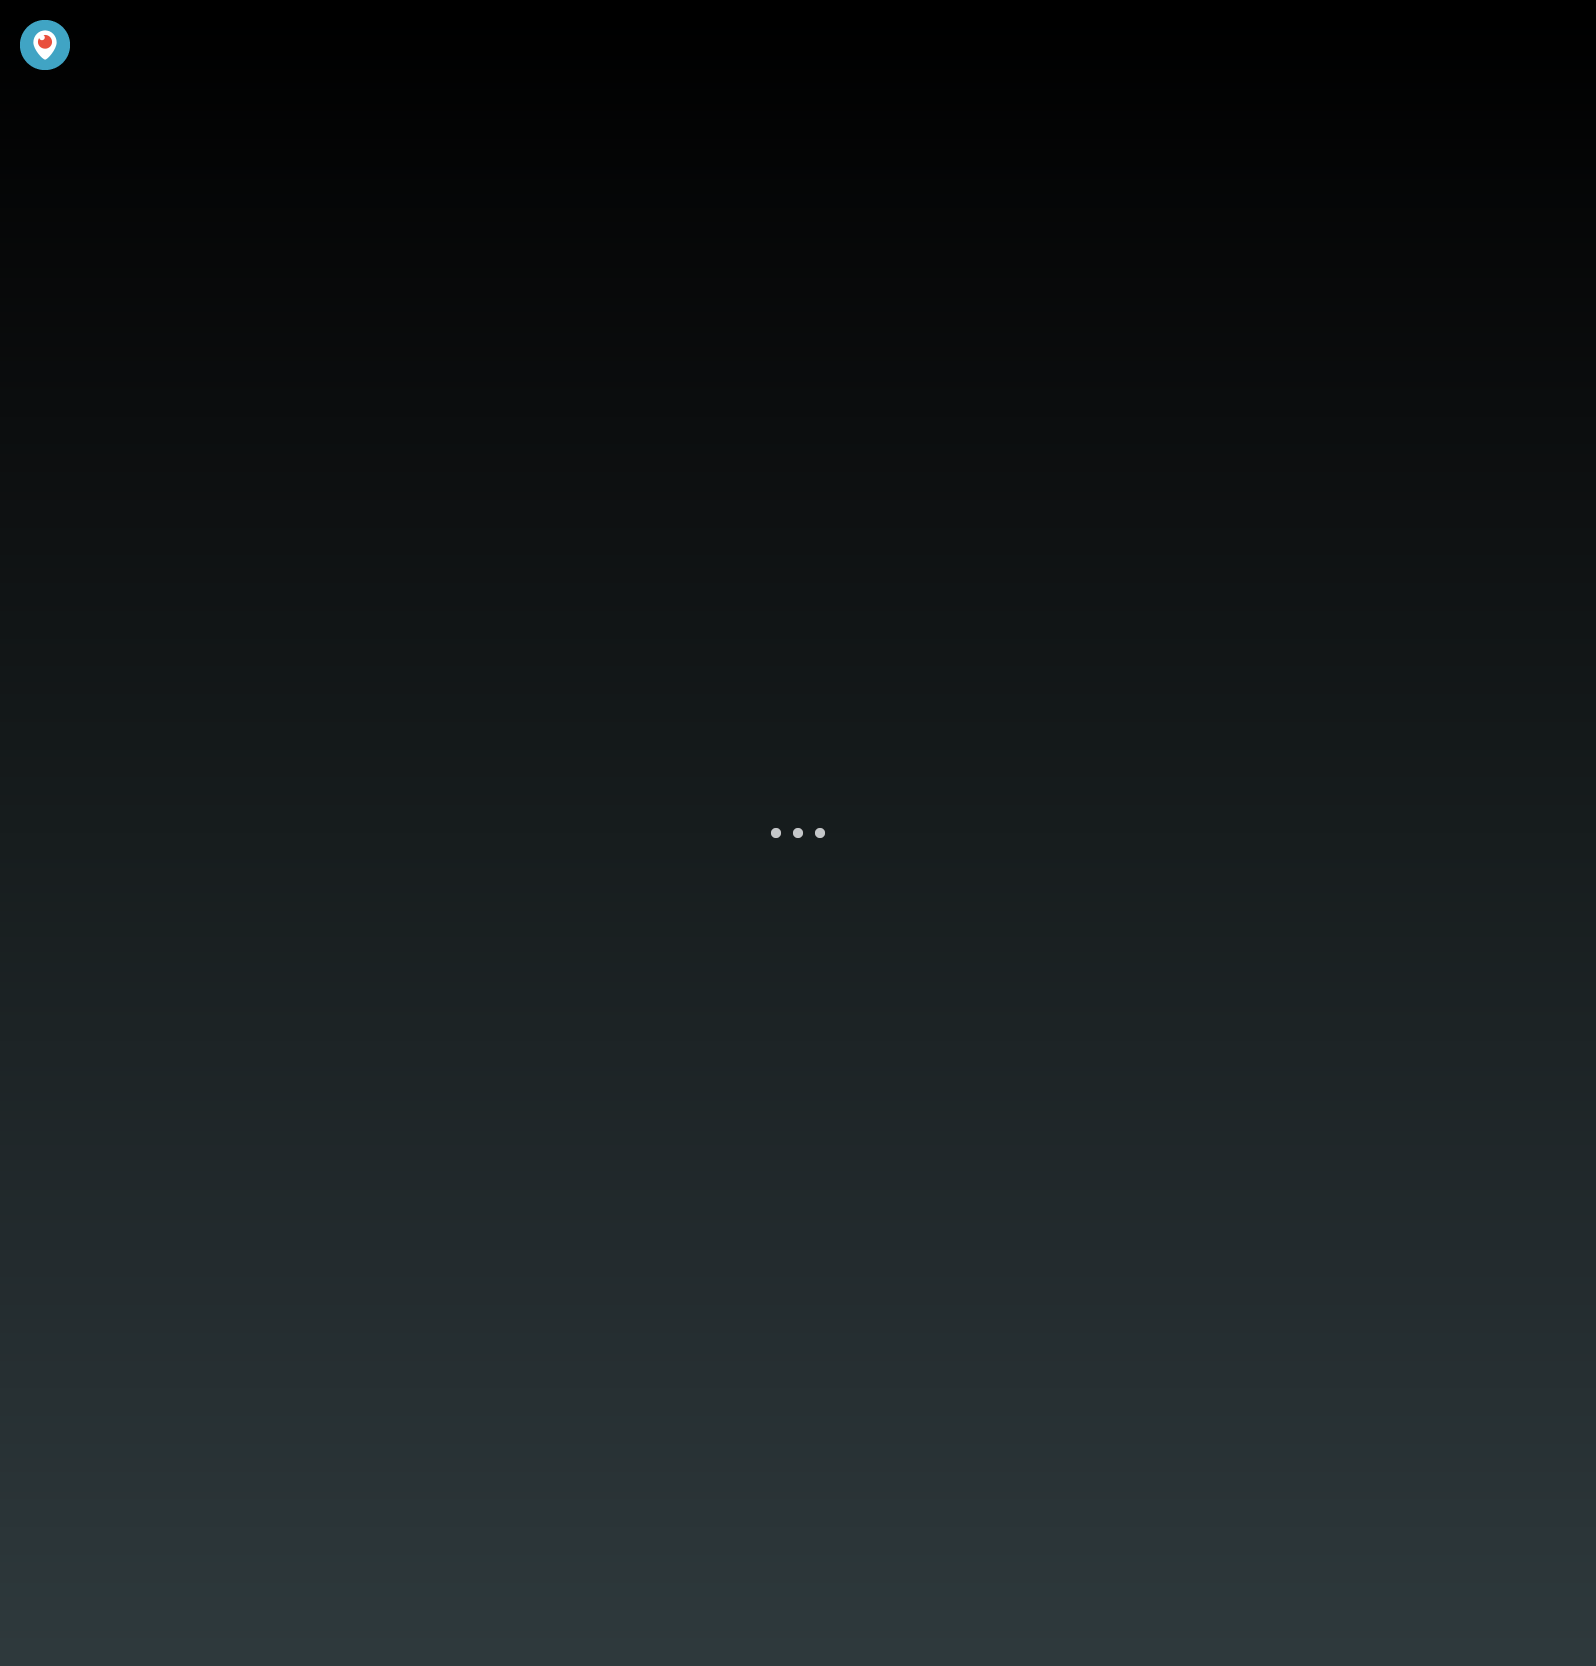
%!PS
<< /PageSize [1596 1666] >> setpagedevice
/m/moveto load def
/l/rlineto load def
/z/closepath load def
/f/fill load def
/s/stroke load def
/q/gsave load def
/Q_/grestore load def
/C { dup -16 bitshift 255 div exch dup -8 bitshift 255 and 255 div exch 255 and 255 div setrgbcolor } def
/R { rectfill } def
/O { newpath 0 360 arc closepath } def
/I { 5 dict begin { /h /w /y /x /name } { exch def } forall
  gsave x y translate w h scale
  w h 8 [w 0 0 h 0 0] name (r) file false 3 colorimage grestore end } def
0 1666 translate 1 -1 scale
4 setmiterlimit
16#FFFFFF C
0 0 1596 1666 R
q 0 0 m 1596 0 l 0 1666 l -1596 0 l z clip newpath
<< /ShadingType 2 /ColorSpace /DeviceRGB /Coords [798 0 798 1666] /Extend [true true] /Function << /FunctionType 2 /Domain [0 1] /C0 [0 0 0] /C1 [.184 .227 .239] /N 1 >> >> shfill Q_
16#40A4C4 C
45 45 25 O f
(1.rgb) 33 30 24 30 I
16#1B1F20 C
776 833 5.5 O s
16#C4C7C9 C
776 833 5 O f
16#1B1F20 C
798 833 5.5 O s
16#C4C7C9 C
798 833 5 O f
16#1B1F20 C
820 833 5.5 O s
16#C4C7C9 C
820 833 5 O f
showpage
